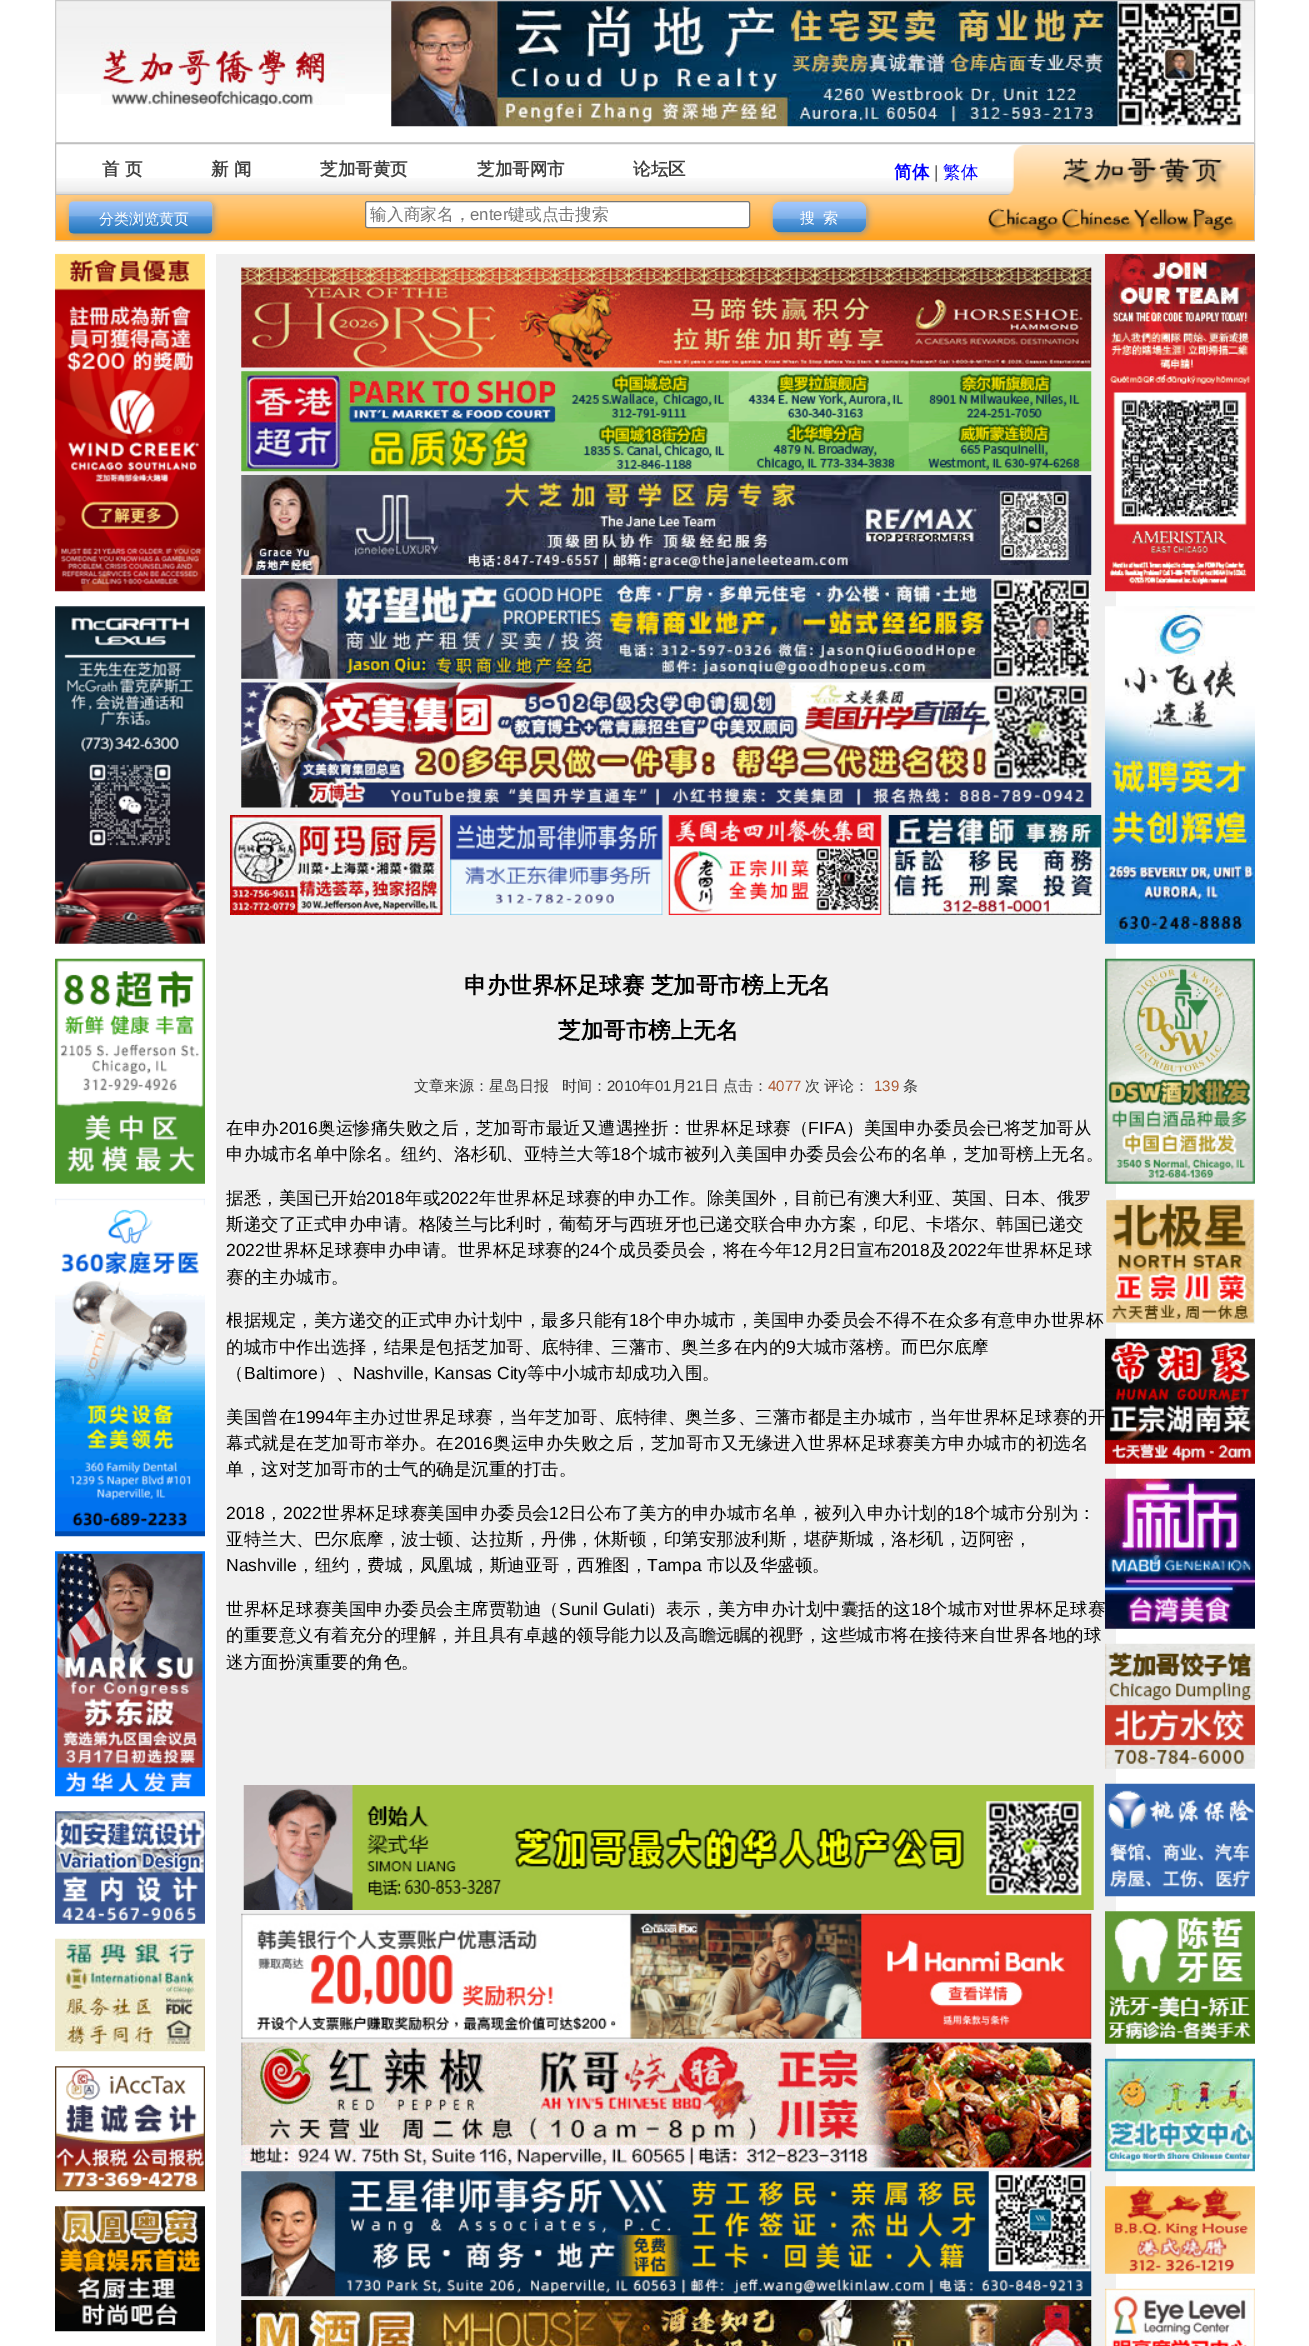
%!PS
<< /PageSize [1309 2346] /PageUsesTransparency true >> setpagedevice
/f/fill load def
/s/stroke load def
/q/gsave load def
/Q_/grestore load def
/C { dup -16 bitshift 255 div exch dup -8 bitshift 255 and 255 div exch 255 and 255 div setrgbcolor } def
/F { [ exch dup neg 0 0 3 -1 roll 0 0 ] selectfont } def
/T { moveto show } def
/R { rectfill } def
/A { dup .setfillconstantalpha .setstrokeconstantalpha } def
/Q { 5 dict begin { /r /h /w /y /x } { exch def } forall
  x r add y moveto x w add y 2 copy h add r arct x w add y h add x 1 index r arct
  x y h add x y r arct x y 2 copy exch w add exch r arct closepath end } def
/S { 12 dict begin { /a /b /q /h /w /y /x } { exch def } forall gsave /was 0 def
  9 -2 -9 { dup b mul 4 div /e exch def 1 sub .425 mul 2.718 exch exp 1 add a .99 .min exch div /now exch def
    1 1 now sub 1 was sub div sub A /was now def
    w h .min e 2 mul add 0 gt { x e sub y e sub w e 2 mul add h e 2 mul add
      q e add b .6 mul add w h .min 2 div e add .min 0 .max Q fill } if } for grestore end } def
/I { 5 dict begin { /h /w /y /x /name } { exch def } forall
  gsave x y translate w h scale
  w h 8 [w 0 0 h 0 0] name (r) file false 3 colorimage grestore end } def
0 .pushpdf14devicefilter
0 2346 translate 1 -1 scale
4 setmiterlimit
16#FFFFFF C
0 0 1309 2346 R
(1.rgb) 56 1 1198 93 I
16#CCCCCC C
55.5 .5 1199 142 rectstroke
(2.rgb) 101 42 244 63 I
(3.rgb) 391 1 851 126 I
(4.rgb) 56 178 1198 16 I
16#C0C0C0 C
55.5 143.5 1199 51 rectstroke
/WenQuanYiZenHei-Bold 17.5 F
16#404040 C
(首 页) 102 175 T
(新 闻) 211 175 T
(芝加哥黄页) 320 175 T
(芝加哥网市) 477 175 T
(论坛区) 633 175 T
16#0000FF C
(简体) 894 178 T
/LiberationSans-Regular 17.5 F
16#666666 C
(|) 934 178 T
/WenQuanYiZenHei-Medium 17.5 F
16#0000FF C
(繁体) 943 178 T
(5.rgb) 1008 145 17 50 I
(6.rgb) 1025 145 229 50 I
(7.rgb) 1062 157 166 34 I
(8.rgb) 55 195 1200 47 I
16#C0C0C0 C
1254 195 1 46 R
55 240 1200 1 R
55 195 1 46 R
16#999999 C
70 203 144 32 5 3 1 S
(9.rgb) 68 201 145 33 I
/WenQuanYiZenHei-Medium 15 F
16#FFFFFF C
(分类浏览黄页) 99 224 T
365.5 201.5 384 26 2 Q q f Q_
16#767676 C
s
/WenQuanYiZenHei-Medium 16.75 F
16#757575 C
(输入商家名，) 370 220 T
/LiberationSans-Regular 16.75 F
(enter) 470 220 T
/WenQuanYiZenHei-Medium 16.75 F
(键或点击搜索) 508 220 T
16#999999 C
774 203 94 31 9 3 1 S
(10.rgb) 772 201 95 32 I
/WenQuanYiZenHei-Medium 15 F
16#FFFFFF C
(搜) 800 223 T
(索) 823 223 T
(11.rgb) 988 208 249 31 I
(12.rgb) 55 253 150 339 I
(13.rgb) 55 606 150 338 I
(14.rgb) 55 958 150 226 I
(15.rgb) 55 1198 150 339 I
(16.rgb) 55 1551 150 246 I
(17.rgb) 55 1811 150 113 I
(18.rgb) 55 1938 150 114 I
(19.rgb) 55 2066 150 126 I
(20.rgb) 55 2206 150 126 I
16#F0F0F0 C
216 254 900 2092 R
(21.rgb) 241 267 851 101 I
(22.rgb) 241 371 851 101 I
(23.rgb) 241 475 851 100 I
(24.rgb) 241 578 850 101 I
(25.rgb) 241 682 851 126 I
(26.rgb) 230 815 213 100 I
(27.rgb) 450 815 213 100 I
(28.rgb) 668 815 214 100 I
(29.rgb) 888 815 214 100 I
/WenQuanYiZenHei-Bold 22.5 F
16#000000 C
(申办世界杯足球赛 芝加哥市榜上无名) 464 993 T
(芝加哥市榜上无名) 558 1038 T
/WenQuanYiZenHei-Medium 15 F
16#333333 C
(文章来源：星岛日报) 414 1091 T
(时间：) 562 1091 T
/LiberationSans-Regular 15 F
(2010) 607 1091 T
/WenQuanYiZenHei-Medium 15 F
(年) 640 1091 T
/LiberationSans-Regular 15 F
(01) 655 1091 T
/WenQuanYiZenHei-Medium 15 F
(月) 672 1091 T
/LiberationSans-Regular 15 F
(21) 687 1091 T
/WenQuanYiZenHei-Medium 15 F
(日) 704 1091 T
(点击：) 723 1091 T
/LiberationSans-Regular 15 F
16#AB5830 C
(4077) 768 1091 T
/WenQuanYiZenHei-Medium 15 F
16#333333 C
(次 评论：) 805 1091 T
/LiberationSans-Regular 15 F
16#AB5830 C
(139) 874 1091 T
/WenQuanYiZenHei-Medium 15 F
16#333333 C
(条) 903 1091 T
/WenQuanYiZenHei-Medium 17.5 F
16#000000 C
(在申办) 226 1134 T
/LiberationSans-Regular 17.5 F
(2016) 279 1134 T
/WenQuanYiZenHei-Medium 17.5 F
(奥运惨痛失败之后，芝加哥市最近又遭遇挫折：世界杯足球赛（) 318 1134 T
/LiberationSans-Regular 17.5 F
(FIFA) 808 1134 T
/WenQuanYiZenHei-Medium 17.5 F
(）美国申办委员会已将芝加哥从) 846 1134 T
(申办城市名单中除名。纽约、洛杉矶、亚特兰大等) 226 1160 T
/LiberationSans-Regular 17.5 F
(18) 611 1160 T
/WenQuanYiZenHei-Medium 17.5 F
(个城市被列入美国申办委员会公布的名单，芝加哥榜上无名。) 631 1160 T
(据悉，美国已开始) 226 1204 T
/LiberationSans-Regular 17.5 F
(2018) 366 1204 T
/WenQuanYiZenHei-Medium 17.5 F
(年或) 405 1204 T
/LiberationSans-Regular 17.5 F
(2022) 440 1204 T
/WenQuanYiZenHei-Medium 17.5 F
(年世界杯足球赛的申办工作。除美国外，目前已有澳大利亚、英国、日本、俄罗) 479 1204 T
(斯递交了正式申办申请。格陵兰与比利时，葡萄牙与西班牙也已递交联合申办方案，印尼、卡塔尔、韩国已递交) 226 1230 T
/LiberationSans-Regular 17.5 F
(2022) 226 1256 T
/WenQuanYiZenHei-Medium 17.5 F
(世界杯足球赛申办申请。世界杯足球赛的) 265 1256 T
/LiberationSans-Regular 17.5 F
(24) 580 1256 T
/WenQuanYiZenHei-Medium 17.5 F
(个成员委员会，将在今年) 600 1256 T
/LiberationSans-Regular 17.5 F
(12) 792 1256 T
/WenQuanYiZenHei-Medium 17.5 F
(月) 812 1256 T
/LiberationSans-Regular 17.5 F
(2) 829 1256 T
/WenQuanYiZenHei-Medium 17.5 F
(日宣布) 839 1256 T
/LiberationSans-Regular 17.5 F
(2018) 891 1256 T
/WenQuanYiZenHei-Medium 17.5 F
(及) 930 1256 T
/LiberationSans-Regular 17.5 F
(2022) 948 1256 T
/WenQuanYiZenHei-Medium 17.5 F
(年世界杯足球) 987 1256 T
(赛的主办城市。) 226 1283 T
(根据规定，美方递交的正式申办计划中，最多只能有) 226 1326 T
/LiberationSans-Regular 17.5 F
(18) 629 1326 T
/WenQuanYiZenHei-Medium 17.5 F
(个申办城市，美国申办委员会不得不在众多有意申办世界杯) 648 1326 T
(的城市中作出选择，结果是包括芝加哥、底特律、三藩市、奥兰多在内的) 226 1353 T
/LiberationSans-Regular 17.5 F
(9) 786 1353 T
/WenQuanYiZenHei-Medium 17.5 F
(大城市落榜。而巴尔底摩) 796 1353 T
(（) 226 1379 T
/LiberationSans-Regular 17.5 F
(Baltimore) 244 1379 T
/WenQuanYiZenHei-Medium 17.5 F
(）、) 318 1379 T
/LiberationSans-Regular 17.5 F
(Nashville, Kansas City) 353 1379 T
/WenQuanYiZenHei-Medium 17.5 F
(等中小城市却成功入围。) 527 1379 T
(美国曾在) 226 1423 T
/LiberationSans-Regular 17.5 F
(1994) 296 1423 T
/WenQuanYiZenHei-Medium 17.5 F
(年主办过世界足球赛，当年芝加哥、底特律、奥兰多、三藩市都是主办城市，当年世界杯足球赛的开) 335 1423 T
(幕式就是在芝加哥市举办。在) 226 1449 T
/LiberationSans-Regular 17.5 F
(2016) 454 1449 T
/WenQuanYiZenHei-Medium 17.5 F
(奥运申办失败之后，芝加哥市又无缘进入世界杯足球赛美方申办城市的初选名) 493 1449 T
(单，这对芝加哥市的士气的确是沉重的打击。) 226 1475 T
/LiberationSans-Regular 17.5 F
(2018) 226 1519 T
/WenQuanYiZenHei-Medium 17.5 F
(，) 265 1519 T
/LiberationSans-Regular 17.5 F
(2022) 283 1519 T
/WenQuanYiZenHei-Medium 17.5 F
(世界杯足球赛美国申办委员会) 322 1519 T
/LiberationSans-Regular 17.5 F
(12) 549 1519 T
/WenQuanYiZenHei-Medium 17.5 F
(日公布了美方的申办城市名单，被列入申办计划的) 569 1519 T
/LiberationSans-Regular 17.5 F
(18) 954 1519 T
/WenQuanYiZenHei-Medium 17.5 F
(个城市分别为：) 973 1519 T
(亚特兰大、巴尔底摩，波士顿、达拉斯，丹佛，休斯顿，印第安那波利斯，堪萨斯城，洛杉矶，迈阿密，) 226 1545 T
/LiberationSans-Regular 17.5 F
(Nashville) 226 1571 T
/WenQuanYiZenHei-Medium 17.5 F
(，纽约，费城，凤凰城，斯迪亚哥，西雅图，) 297 1571 T
/LiberationSans-Regular 17.5 F
(Tampa) 647 1571 T
/WenQuanYiZenHei-Medium 17.5 F
(市以及华盛顿。) 707 1571 T
(世界杯足球赛美国申办委员会主席贾勒迪（) 226 1615 T
/LiberationSans-Regular 17.5 F
(Sunil Gulati) 559 1615 T
/WenQuanYiZenHei-Medium 17.5 F
(）表示，美方申办计划中囊括的这) 648 1615 T
/LiberationSans-Regular 17.5 F
(18) 911 1615 T
/WenQuanYiZenHei-Medium 17.5 F
(个城市对世界杯足球赛) 930 1615 T
(的重要意义有着充分的理解，并且具有卓越的领导能力以及高瞻远瞩的视野，这些城市将在接待来自世界各地的球) 226 1641 T
(迷方面扮演重要的角色。) 226 1668 T
(30.rgb) 243 1785 851 125 I
(31.rgb) 241 1913 851 126 I
(32.rgb) 241 2042 851 126 I
(33.rgb) 241 2171 851 126 I
(34.rgb) 241 2300 851 46 I
(35.rgb) 1105 253 150 339 I
(36.rgb) 1105 606 150 338 I
(37.rgb) 1105 958 150 226 I
(38.rgb) 1105 1198 150 126 I
(39.rgb) 1105 1338 150 126 I
(40.rgb) 1105 1478 150 151 I
(41.rgb) 1105 1643 150 126 I
(42.rgb) 1105 1783 150 114 I
(43.rgb) 1105 1911 150 133 I
(44.rgb) 1105 2058 150 114 I
(45.rgb) 1105 2186 150 88 I
(46.rgb) 1105 2288 150 58 I
.poppdf14devicefilter showpage
